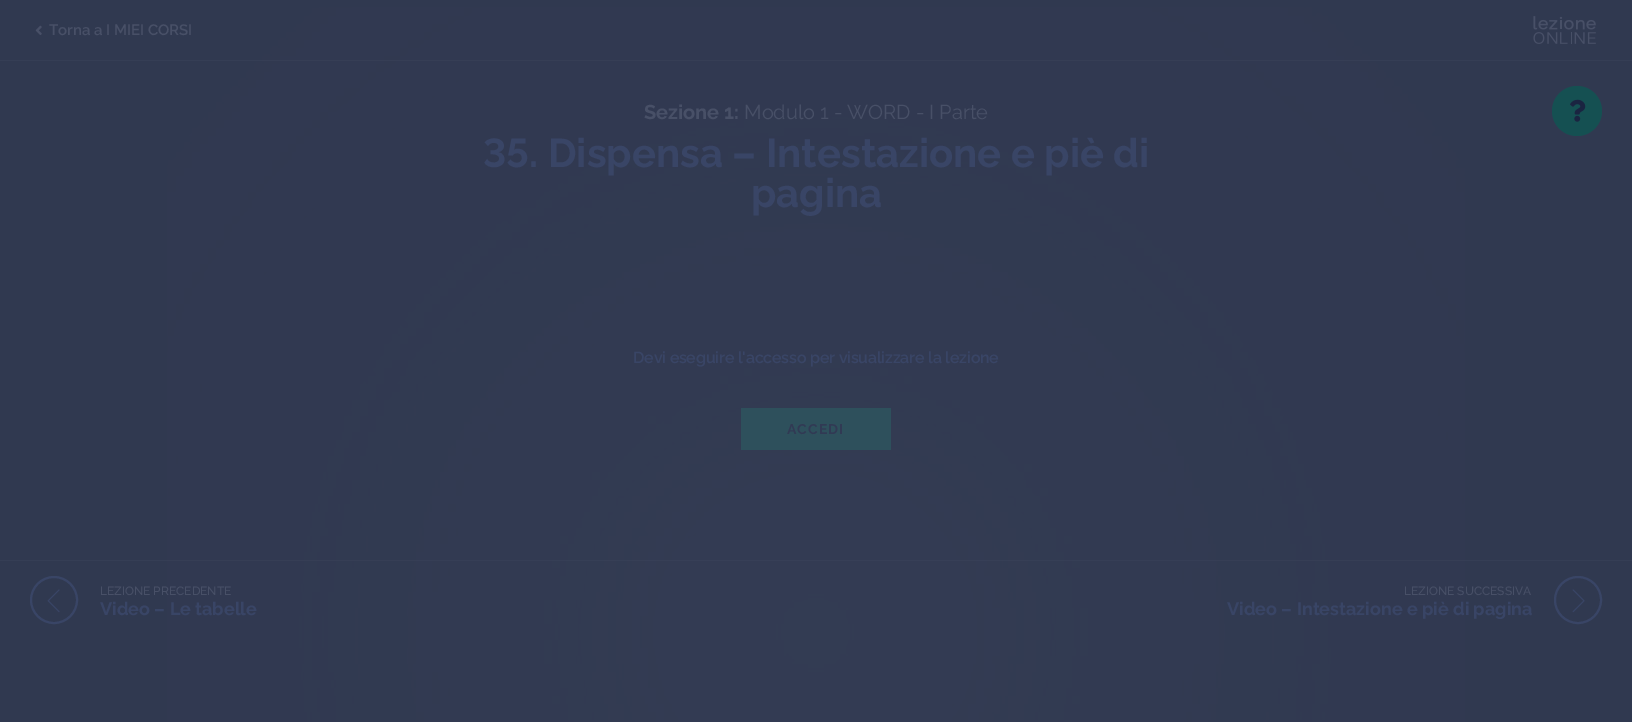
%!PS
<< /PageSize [1632 722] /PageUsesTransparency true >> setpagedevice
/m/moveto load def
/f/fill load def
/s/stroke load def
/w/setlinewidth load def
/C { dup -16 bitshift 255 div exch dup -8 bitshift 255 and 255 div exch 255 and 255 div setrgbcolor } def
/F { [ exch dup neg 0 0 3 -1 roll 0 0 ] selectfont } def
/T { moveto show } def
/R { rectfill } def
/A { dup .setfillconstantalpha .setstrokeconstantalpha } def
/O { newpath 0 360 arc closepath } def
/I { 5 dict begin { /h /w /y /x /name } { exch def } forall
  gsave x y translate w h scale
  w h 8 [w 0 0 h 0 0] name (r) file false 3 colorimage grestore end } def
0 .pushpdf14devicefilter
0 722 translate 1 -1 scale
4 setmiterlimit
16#303950 C
0 0 1632 722 R
(1.rgb) 167 7 1298 715 I
0.2 A
16#485067 C
0 60 1632 1 R
1 A
(2.rgb) 35 25 7 10 I
/Raleway-SemiBold 15 F
(Torna a I MIEI CORSI) 49 35 T
(3.rgb) 1533 16 63 28 I
/Raleway-Bold 20 F
(Sezione 1:) 644 119 T
/Raleway-Regular 20 F
(Modulo 1 - WORD - I Parte) 744 119 T
/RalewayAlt-Bold 40 F
16#394566 C
(35. Dispensa – Intestazione e piè di) 483 167 T
/Raleway-Bold 40 F
(pagina) 751 207 T
/Raleway-SemiBold 16 F
633 363 m -.2 0 (Devi eseguire l'accesso per visualizzare la lezione) ashow
16#2E505C C
741 408 150 42 R
/Raleway-Bold 14 F
16#313A54 C
787 434 m 1 0 (ACCEDI) ashow
16#155052 C
1577 111 25 O f
(4.rgb) 1570 99 16 23 I
0.2 A
16#485067 C
0 560 1632 1 R
1 A
16#394566 C
2 w
54 600 23 O s
(5.rgb) 47 589 13 24 I
/Raleway-Medium 12 F
16#485067 C
(LEZIONE PRECEDENTE) 100 595 T
/Raleway-Bold 18 F
16#394566 C
(Video – Le tabelle) 100 615 T
/Raleway-Medium 12 F
16#485067 C
(LEZIONE SUCCESSIVA) 1404 595 T
16#394566 C
1578 600 23 O s
(6.rgb) 1572 589 13 24 I
/Raleway-Bold 18 F
(Video – Intestazione e piè di pagina) 1227 615 T
.poppdf14devicefilter showpage
